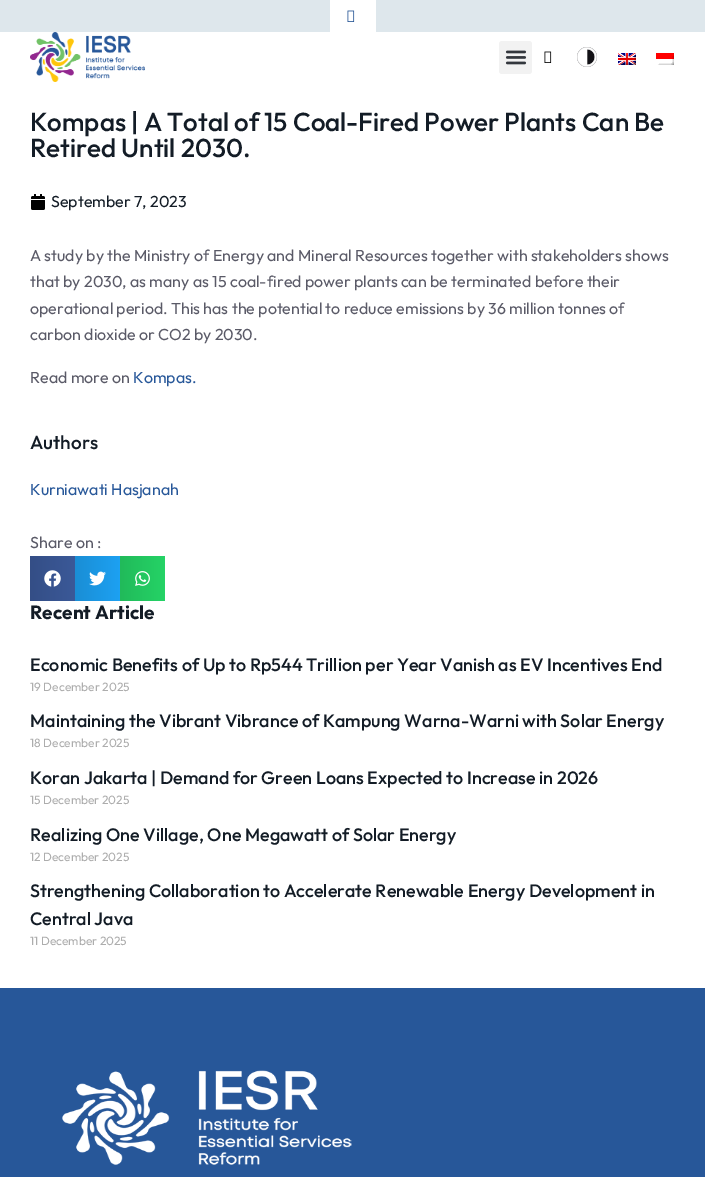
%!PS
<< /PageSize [705 1177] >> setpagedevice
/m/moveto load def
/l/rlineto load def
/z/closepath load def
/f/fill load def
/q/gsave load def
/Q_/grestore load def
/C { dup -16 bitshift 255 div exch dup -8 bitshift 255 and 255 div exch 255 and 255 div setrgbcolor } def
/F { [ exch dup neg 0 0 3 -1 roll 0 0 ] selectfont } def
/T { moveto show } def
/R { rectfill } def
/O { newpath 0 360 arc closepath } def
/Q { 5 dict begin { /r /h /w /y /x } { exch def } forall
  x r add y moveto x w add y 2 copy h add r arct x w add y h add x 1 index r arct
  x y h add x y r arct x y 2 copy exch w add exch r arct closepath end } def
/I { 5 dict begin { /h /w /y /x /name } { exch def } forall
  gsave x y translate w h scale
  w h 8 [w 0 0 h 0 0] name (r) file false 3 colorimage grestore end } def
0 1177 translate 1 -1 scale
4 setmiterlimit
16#FFFFFF C
0 0 705 1177 R
16#DEE7EC C
0 0 705 32 R
16#FFFFFF C
330 0 46 32 R
(1.rgb) 347 10 8 12 I
(2.rgb) 30 32 115 50 I
16#F2F2F2 C
499 41 33 33 3 Q f
(3.rgb) 505 50 22 15 I
(4.rgb) 544 51 8 12 I
16#121116 C
587 57 10 O f
(5.rgb) 577 47 20 20 I
(6.rgb) 618 53 18 12 I
(7.rgb) 656 53 18 12 I
/Outfit-Medium 26 F
16#131C26 C
(Kompas | A Total of 15 Coal-Fired Power Plants Can Be) 30 131 T
(Retired Until 2030.) 30 157 T
(8.rgb) 31 194 14 16 I
/Outfit-Regular 16 F
(September 7, 2023) 51 207 T
16#5A5A67 C
(A study by the Ministry of Energy and Mineral Resources together with stakeholders shows) 30 261 T
(that by 2030, as many as 15 coal-fired power plants can be terminated before their) 30 287 T
(operational period. This has the potential to reduce emissions by 36 million tonnes of) 30 314 T
(carbon dioxide or CO2 by 2030.) 30 340 T
(Read more on) 30 383 T
16#275799 C
(Kompas.) 133 383 T
/Outfit-Medium 19 F
16#131C26 C
(Authors) 30 449 T
/Outfit-Regular 16 F
16#275799 C
(Kurniawati Hasjanah) 30 495 T
16#5A5A67 C
(Share on :) 30 548 T
q 30 556 m 45 0 l 0 45 l -45 0 l z clip newpath
<< /ShadingType 2 /ColorSpace /DeviceRGB /Coords [30 579 75 579] /Extend [true true] /Function << /FunctionType 2 /Domain [0 1] /C0 [.204 .306 .525] /C1 [.231 .349 .596] /N 1 >> >> shfill Q_
(9.rgb) 44 570 17 17 I
q 75 556 m 45 0 l 0 45 l -45 0 l z clip newpath
<< /ShadingType 2 /ColorSpace /DeviceRGB /Coords [75 579 120 579] /Extend [true true] /Function << /FunctionType 2 /Domain [0 1] /C0 [.102 .557 .835] /C1 [.114 .631 .949] /N 1 >> >> shfill Q_
(10.rgb) 89 571 17 15 I
q 120 556 m 45 0 l 0 45 l -45 0 l z clip newpath
<< /ShadingType 2 /ColorSpace /DeviceRGB /Coords [120 579 165 579] /Extend [true true] /Function << /FunctionType 2 /Domain [0 1] /C0 [.129 .729 .353] /C1 [.145 .827 .4] /N 1 >> >> shfill Q_
(11.rgb) 135 571 15 15 I
/Outfit-Bold 19 F
16#131C26 C
(Recent Article) 30 619 T
/Outfit-Medium 18 F
(Economic Benefits of Up to Rp544 Trillion per Year Vanish as EV Incentives End) 30 671 T
/Outfit-Regular 12 F
16#ADADAD C
(19 December 2025) 30 691 T
/Outfit-Medium 18 F
16#131C26 C
(Maintaining the Vibrant Vibrance of Kampung Warna-Warni with Solar Energy) 30 727 T
/Outfit-Regular 12 F
16#ADADAD C
(18 December 2025) 30 747 T
/Outfit-Medium 18 F
16#131C26 C
(Koran Jakarta | Demand for Green Loans Expected to Increase in 2026) 30 784 T
/Outfit-Regular 12 F
16#ADADAD C
(15 December 2025) 30 804 T
/Outfit-Medium 18 F
16#131C26 C
(Realizing One Village, One Megawatt of Solar Energy) 30 841 T
/Outfit-Regular 12 F
16#ADADAD C
(12 December 2025) 30 861 T
/Outfit-Medium 18 F
16#131C26 C
(Strengthening Collaboration to Accelerate Renewable Energy Development in) 30 897 T
(Central Java) 30 925 T
/Outfit-Regular 12 F
16#ADADAD C
(11 December 2025) 30 945 T
16#275799 C
0 988 705 189 R
(12.rgb) 62 1070 290 95 I
showpage
